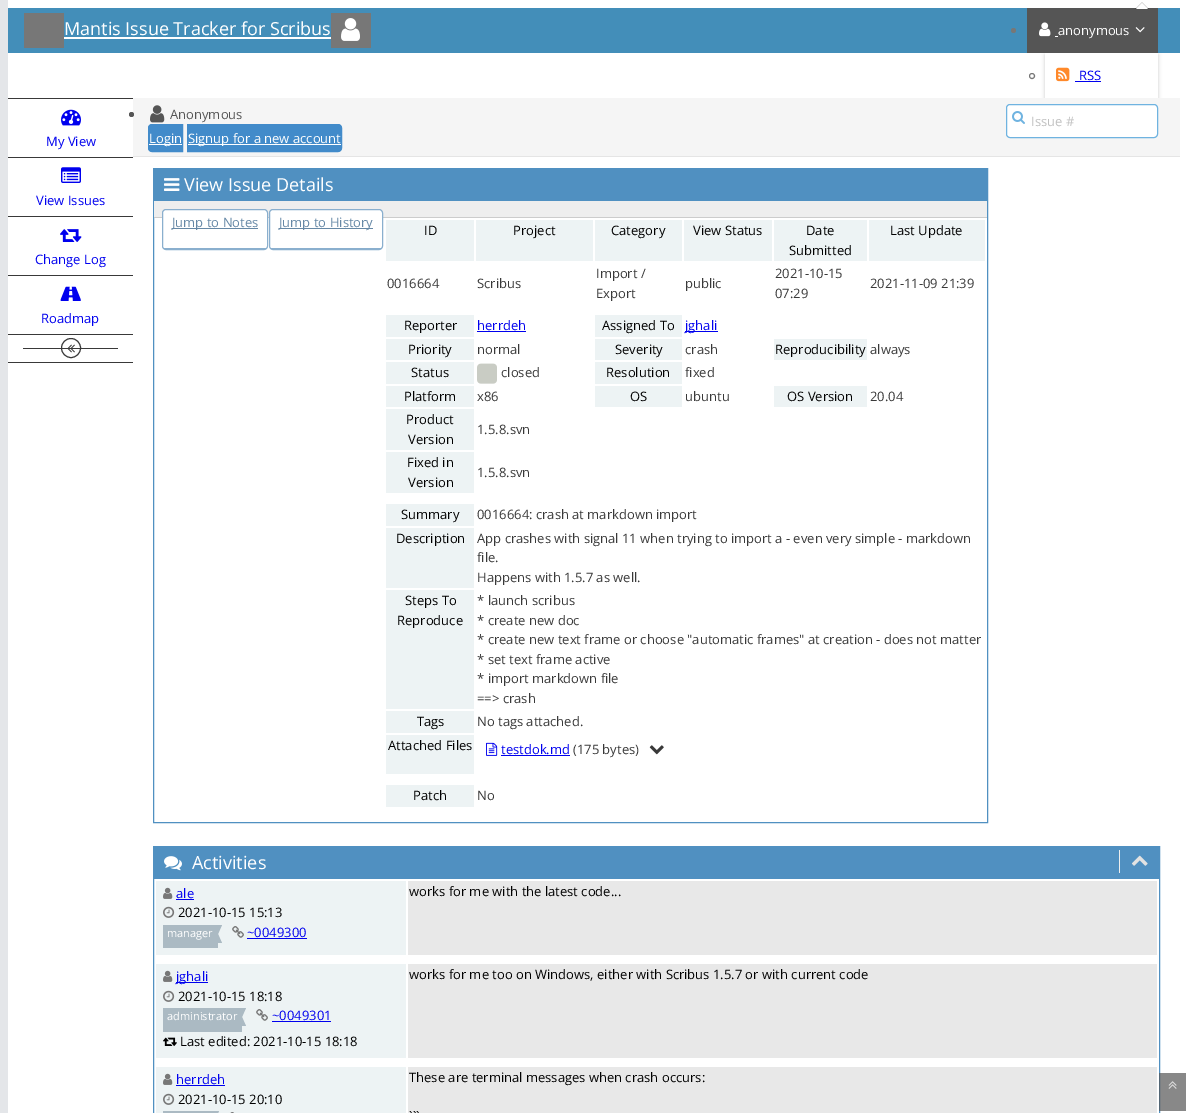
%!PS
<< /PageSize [1188 1113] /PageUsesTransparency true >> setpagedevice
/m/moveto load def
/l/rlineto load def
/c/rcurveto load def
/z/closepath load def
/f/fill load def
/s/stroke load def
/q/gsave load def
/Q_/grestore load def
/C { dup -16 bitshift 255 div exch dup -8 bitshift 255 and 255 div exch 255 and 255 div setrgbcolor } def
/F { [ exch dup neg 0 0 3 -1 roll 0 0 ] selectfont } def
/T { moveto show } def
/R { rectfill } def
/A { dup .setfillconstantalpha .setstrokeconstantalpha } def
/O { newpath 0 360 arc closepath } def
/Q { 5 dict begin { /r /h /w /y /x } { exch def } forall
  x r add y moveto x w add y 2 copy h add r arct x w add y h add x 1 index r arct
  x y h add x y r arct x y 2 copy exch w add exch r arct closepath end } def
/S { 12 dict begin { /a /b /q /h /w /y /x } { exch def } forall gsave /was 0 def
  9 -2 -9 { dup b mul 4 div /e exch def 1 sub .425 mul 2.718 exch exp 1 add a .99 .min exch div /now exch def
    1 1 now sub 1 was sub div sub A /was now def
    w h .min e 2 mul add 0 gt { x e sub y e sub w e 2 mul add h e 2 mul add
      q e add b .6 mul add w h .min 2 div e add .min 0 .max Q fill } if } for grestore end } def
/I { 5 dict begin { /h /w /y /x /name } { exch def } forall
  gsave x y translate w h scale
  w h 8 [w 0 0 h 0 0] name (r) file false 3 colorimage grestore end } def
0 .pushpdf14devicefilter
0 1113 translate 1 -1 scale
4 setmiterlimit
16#E4E6E9 C
0 0 1188 1113 R
16#FFFFFF C
8 0 1180 1113 R
16#438EB9 C
8 8 1172 45 R
16#777777 C
24 13 40 35 R
/OpenSans-Regular 18 F
16#FFFFFF C
(Mantis Issue Tracker for Scribus) 64 35 T
64 37 267 2 R
16#777777 C
331 13 40 35 R
(1.rgb) 341 18 19 23 I
1013.5 30.5 2.5 O f
q
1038 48 m 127 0 l 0 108 l -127 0 l z 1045 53 m 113 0 l 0 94 l -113 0 l z eoclip newpath
16#000000 C
1045 55 113 94 0 2 .2 S
Q_
16#555555 C
1027 8 131 45 R
(2.rgb) 1039 22 12 15 I
/OpenSans-Regular 13 F
16#FFFFFF C
(anonymous) 1058 35 T
(3.rgb) 1135 27 10 6 I
1055 36 3 1 R
0.2 A
16#000000 C
1149 9 m -14 0 l 7 -7 l z f
1 A
16#FFFFFF C
1148 9 m -12 0 l 6 -6 l z f
16#777777 C
1032 76 2.5 O s
(4.rgb) 1056 67 14 15 I
16#0000EE C
(RSS) 1079 80 T
1075 81 26 1 R
16#393939 C
8 98 125 1 R
(5.rgb) 61 109 20 17 I
16#0000EE C
(My View) 46 146 T
16#393939 C
8 157 125 1 R
(6.rgb) 61 167 20 16 I
16#0000EE C
(View Issues) 36 205 T
16#393939 C
8 216 125 1 R
(7.rgb) 60 229 22 13 I
16#0000EE C
(Change Log) 35 264 T
16#393939 C
8 275 125 1 R
8 334 125 1 R
(8.rgb) 60 286 21 15 I
16#0000EE C
(Roadmap) 41 323 T
16#393939 C
8 362 125 1 R
23 348 95 1 R
71 348 9.5 O s
(9.rgb) 67 344 8 9 I
16#F5F5F5 C
133 98 1047 58 R
16#E5E5E5 C
133 156 1047 1 R
16#555555 C
131.5 114.5 2.5 O f
(10.rgb) 150 105 15 18 I
(Anonymous) 170 119 T
16#428BCA C
152 124.5 m 30.5 0 l 0 27 l -30.5 0 l -2 0 -3.5 -1.5 -3.5 -3.5 c 0 -20 l 0 -2 1.5 -3.5 3.5 -3.5 c z q f Q_
s
16#FFFFFF C
149 144 33 1 R
(Login) 149 143 T
16#428BCA C
187.5 124.5 m 150.5 0 l 2 0 3.5 1.5 3.5 3.5 c 0 20 l 0 2 -1.5 3.5 -3.5 3.5 c -150.5 0 l z q f Q_
s
16#FFFFFF C
188 144 153 1 R
(Signup for a new account) 188 143 T
1006.5 104.5 151 33 3.5 Q q f Q_
16#6FB3E0 C
s
(11.rgb) 1012 111 13 13 I
16#C0C0C0 C
(Issue #) 1031 126 T
16#5090C1 C
153.5 168.5 834 654 rectstroke
154 169 833 32 R
(12.rgb) 164 178 16 13 I
/OpenSans-Regular 18 F
16#FFFFFF C
(View Issue Details) 184 191 T
16#EEEEEE C
154 201 833 16 R
16#CCCCCC C
154 217 833 1 R
16#FFFFFF C
166 210 m 98 0 l 2 0 3 1 3 3 c 0 33 l 0 1 -1 2 -3 2 c -98 0 l -2 0 -3 -1 -3 -2 c 0 -33 l 0 -2 1 -3 3 -3 c z f
16#8AAFCE C
162.5 209.5 105 40 3.5 Q s
164 248 102 1 R
16#6688A6 C
172 228 86 1 R
/OpenSans-Regular 13 F
(Jump to Notes) 172 227 T
16#FFFFFF C
273 210 m 106 0 l 2 0 3 1 3 3 c 0 33 l 0 1 -1 2 -3 2 c -106 0 l -2 0 -3 -1 -3 -2 c 0 -33 l 0 -2 1 -3 3 -3 c z f
16#8AAFCE C
269.5 209.5 113 40 3.5 Q s
271 248 110 1 R
16#6688A6 C
279 228 94 1 R
(Jump to History) 279 227 T
16#EDF3F4 C
386 220 88 41 R
16#000000 C
(ID) 424 235 T
16#EDF3F4 C
476 220 117 41 R
16#000000 C
(Project) 513 235 T
16#EDF3F4 C
595 220 87 41 R
16#000000 C
(Category) 611 235 T
16#EDF3F4 C
684 220 88 41 R
16#000000 C
(View Status) 693 235 T
16#EDF3F4 C
774 220 93 41 R
16#000000 C
(Date) 806 235 T
(Submitted) 789 255 T
16#EDF3F4 C
869 220 116 41 R
16#000000 C
(Last Update) 890 235 T
16#393939 C
(0016664) 387 288 T
(Scribus) 477 288 T
(Import /) 596 278 T
(Export) 596 298 T
(public) 685 288 T
(2021-10-15) 775 278 T
(07:29) 775 298 T
(2021-11-09 21:39) 870 288 T
16#EDF3F4 C
386 315 88 22 R
16#000000 C
(Reporter) 404 330 T
16#0000EE C
(herrdeh) 477 330 T
477 331 49 1 R
16#EDF3F4 C
595 315 87 22 R
16#000000 C
(Assigned To) 602 330 T
16#0000EE C
685 331 33 1 R
(jghali) 685 330 T
16#EDF3F4 C
386 339 88 21 R
16#000000 C
(Priority) 408 354 T
16#393939 C
(normal) 477 354 T
16#EDF3F4 C
595 339 87 21 R
16#000000 C
(Severity) 615 354 T
16#393939 C
(crash) 685 354 T
16#EDF3F4 C
774 339 93 21 R
16#000000 C
(Reproducibility) 775 354 T
16#393939 C
(always) 870 354 T
16#EDF3F4 C
386 362 88 22 R
16#000000 C
(Status) 411 377 T
(13.rgb) 477 363 20 21 I
16#393939 C
(closed) 501 377 T
16#EDF3F4 C
595 362 87 22 R
16#000000 C
(Resolution) 606 377 T
16#393939 C
(fixed) 685 377 T
16#EDF3F4 C
386 386 88 21 R
16#000000 C
(Platform) 404 401 T
16#393939 C
(x86) 477 401 T
16#EDF3F4 C
595 386 87 21 R
16#000000 C
(OS) 630 401 T
16#393939 C
(ubuntu) 685 401 T
16#EDF3F4 C
774 386 93 21 R
16#000000 C
(OS Version) 787 401 T
16#393939 C
(20.04) 870 401 T
16#EDF3F4 C
386 409 88 41 R
16#000000 C
(Product) 406 424 T
(Version) 408 444 T
16#393939 C
(1.5.8.svn) 477 434 T
16#EDF3F4 C
386 452 88 41 R
16#000000 C
(Fixed in) 407 467 T
(Version) 408 487 T
16#393939 C
(1.5.8.svn) 477 477 T
16#EDF3F4 C
386 504 88 22 R
16#000000 C
(Summary) 401 519 T
16#393939 C
(0016664: crash at markdown import) 477 519 T
16#EDF3F4 C
386 528 88 60 R
16#000000 C
(Description) 396 543 T
16#393939 C
(App crashes with signal 11 when trying to import a - even very simple - markdown) 477 543 T
(file.) 477 562 T
(Happens with 1.5.7 as well.) 477 582 T
16#EDF3F4 C
386 590 88 119 R
16#000000 C
(Steps To) 405 605 T
(Reproduce) 397 625 T
16#393939 C
(* launch scribus) 477 605 T
(* create new doc) 477 625 T
(* create new text frame or choose "automatic frames" at creation - does not matter) 477 644 T
(* set text frame active) 477 664 T
(* import markdown file) 477 683 T
(==> crash) 477 703 T
16#EDF3F4 C
386 711 88 22 R
16#000000 C
(Tags) 417 726 T
16#393939 C
(No tags attached.) 477 726 T
16#EDF3F4 C
386 735 88 39 R
16#000000 C
(Attached Files) 388 750 T
(14.rgb) 486 742 12 14 I
16#0000EE C
(testdok.md) 501 754 T
501 755 69 1 R
16#393939 C
(\(175 bytes\)) 573 754 T
(15.rgb) 649 745 15 10 I
16#EDF3F4 C
386 785 88 22 R
16#000000 C
(Patch) 413 800 T
16#393939 C
(No) 477 800 T
16#5090C1 C
153.5 846.5 1006 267 rectstroke
154 847 1005 32 R
(16.rgb) 164 856 18 15 I
/OpenSans-Regular 18 F
16#FFFFFF C
(Activities) 192 869 T
16#EEEEEE C
1119 850 1 23 R
(17.rgb) 1131 855 17 11 I
16#EDF3F4 C
156 881 250 74 R
(18.rgb) 163 887 10 12 I
/OpenSans-Regular 13 F
16#0000EE C
(ale) 176 898 T
176 899 18 1 R
(19.rgb) 163 906 12 12 I
16#000000 C
(2021-10-15 15:13) 178 917 T
16#ABBAC3 C
163 925 55 23 R
/OpenSans-Regular 11 F
16#FFFFFF C
(manager) 167 937 T
16#ABBAC3 C
214 925 m 8 0 l -4 9 l z 222 943 m -8 0 l 4 -9 l z f
(20.rgb) 232 926 12 12 I
/OpenSans-Regular 13 F
16#0000EE C
(~0049300) 247 937 T
247 938 60 1 R
16#E8E8E8 C
408 881 749 74 R
16#000000 C
(works for me with the latest code...) 409 896 T
16#EDF3F4 C
156 964 250 94 R
(18.rgb) 163 970 10 12 I
16#0000EE C
176 982 32 1 R
(jghali) 176 981 T
(19.rgb) 163 990 12 12 I
16#000000 C
(2021-10-15 18:18) 178 1001 T
16#ABBAC3 C
163 1008 79 24 R
/OpenSans-Regular 11 F
16#FFFFFF C
(administrator) 167 1020 T
16#ABBAC3 C
238 1008 m 8 0 l -4 9 l z 246 1026 m -8 0 l 4 -9 l z f
(20.rgb) 256 1009 12 12 I
/OpenSans-Regular 13 F
16#0000EE C
(~0049301) 272 1020 T
272 1021 59 1 R
(21.rgb) 163 1037 14 9 I
16#000000 C
(Last edited: 2021-10-15 18:18) 180 1046 T
16#E8E8E8 C
408 964 749 94 R
16#000000 C
(works for me too on Windows, either with Scribus 1.5.7 or with current code) 409 979 T
16#EDF3F4 C
156 1067 250 46 R
(18.rgb) 163 1073 10 12 I
16#0000EE C
(herrdeh) 176 1084 T
176 1085 49 1 R
(19.rgb) 163 1093 12 12 I
16#000000 C
(2021-10-15 20:10) 178 1104 T
16#ABBAC3 C
163 1111 52 2 R
211 1111 m 8 0 l -4 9 l z f
(22.rgb) 230 1112 4 1 I
16#E8E8E8 C
408 1067 749 46 R
16#000000 C
(These are terminal messages when crash occurs:) 409 1082 T
(```) 409 1121 T
0.7 A
16#555555 C
1159 1073 27 38 R
1 A
(23.rgb) 1168 1081 9 8 I
.poppdf14devicefilter showpage
